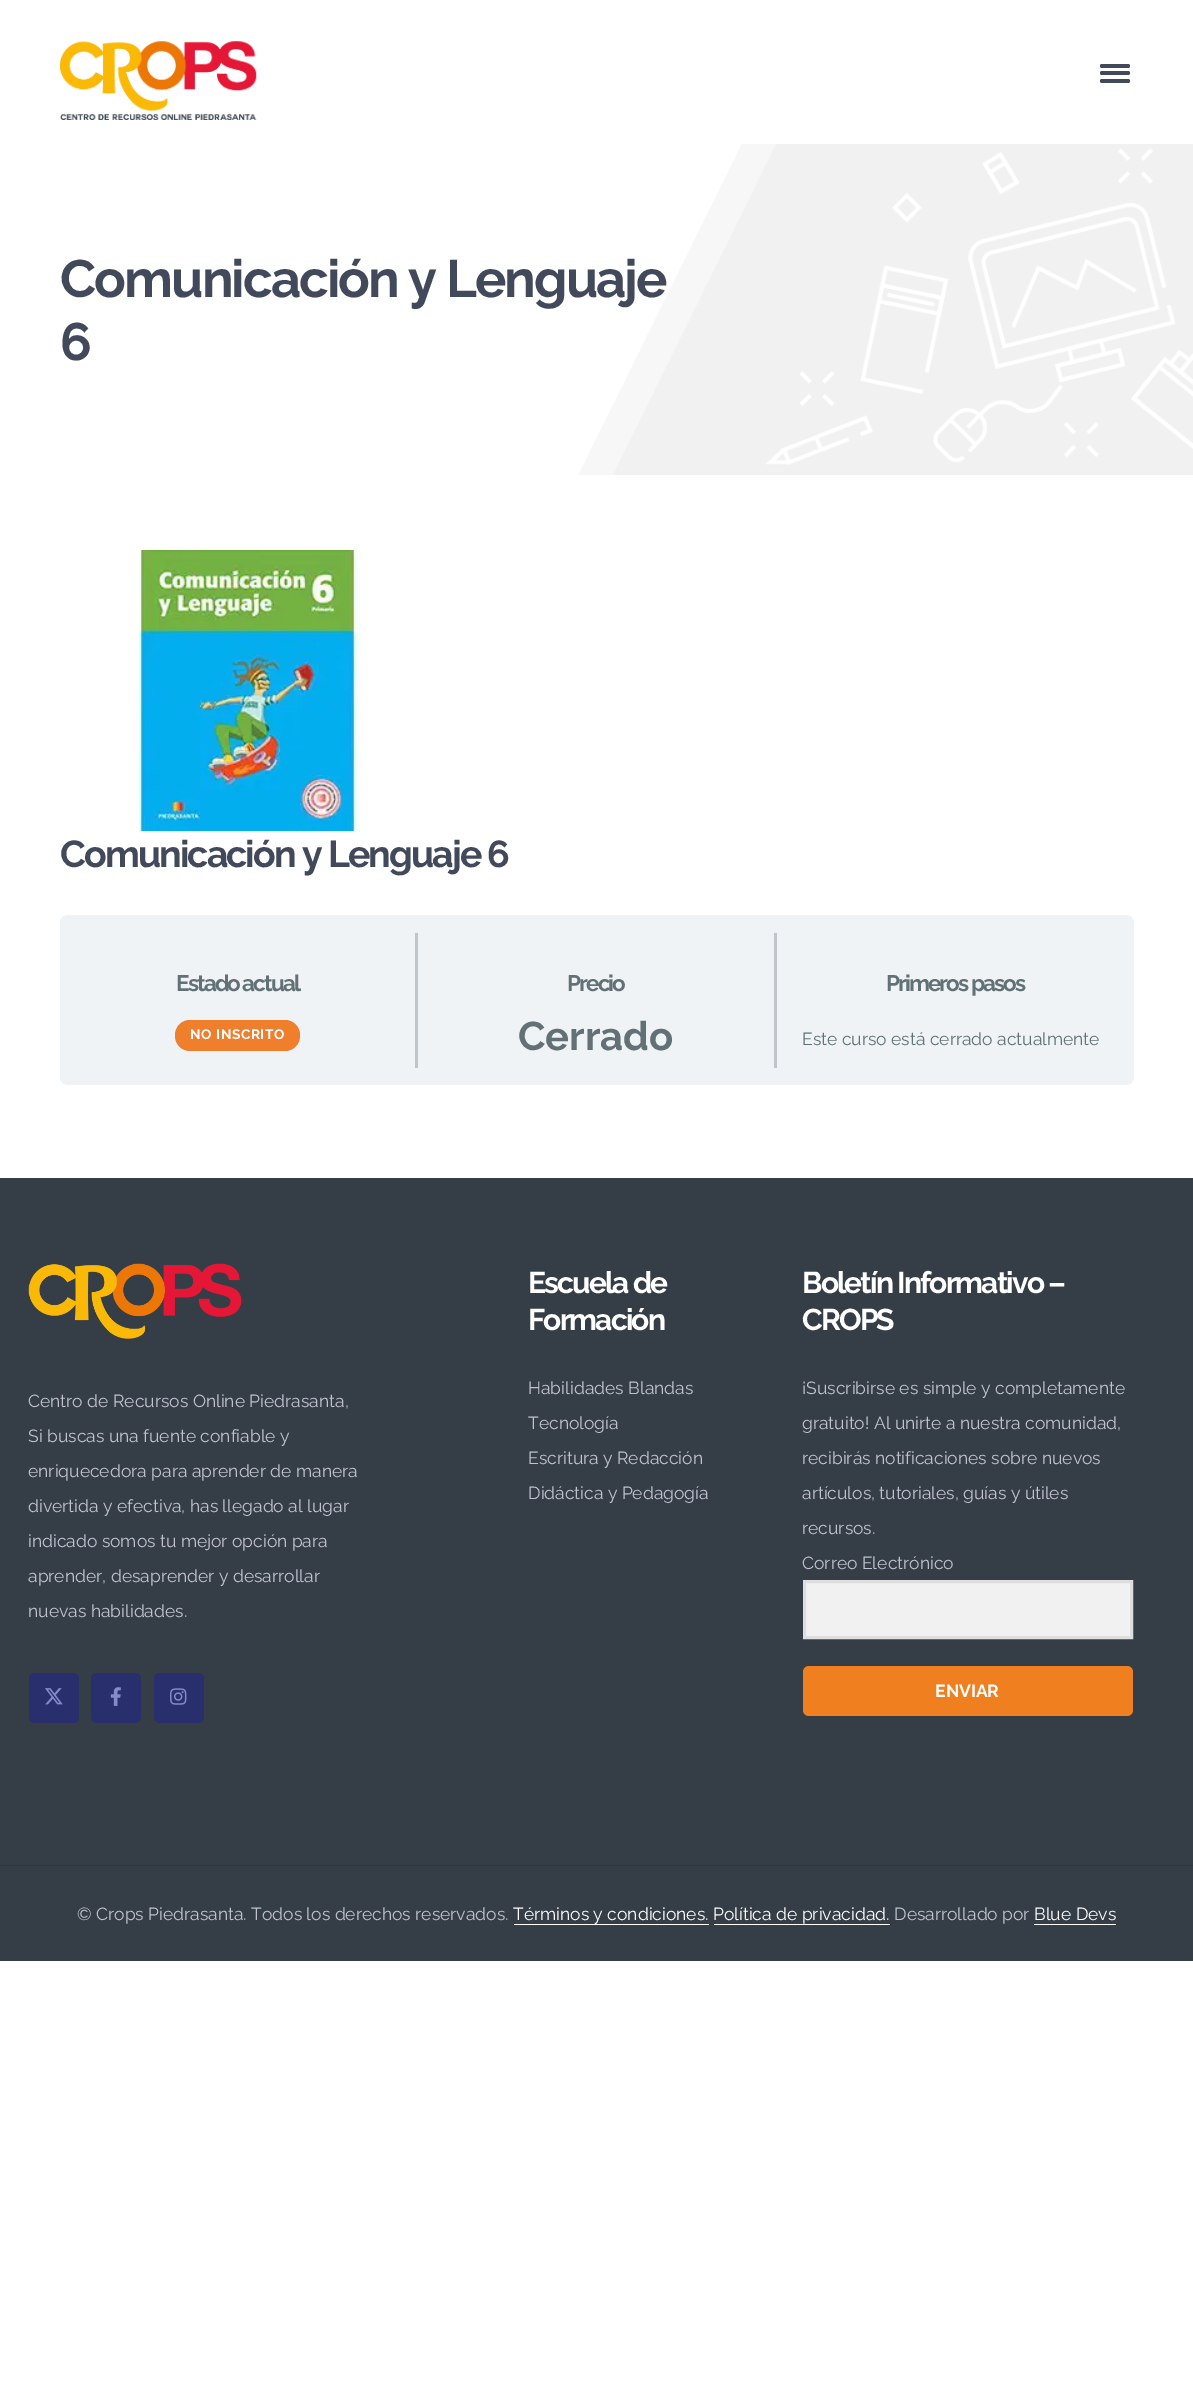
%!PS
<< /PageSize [1193 2397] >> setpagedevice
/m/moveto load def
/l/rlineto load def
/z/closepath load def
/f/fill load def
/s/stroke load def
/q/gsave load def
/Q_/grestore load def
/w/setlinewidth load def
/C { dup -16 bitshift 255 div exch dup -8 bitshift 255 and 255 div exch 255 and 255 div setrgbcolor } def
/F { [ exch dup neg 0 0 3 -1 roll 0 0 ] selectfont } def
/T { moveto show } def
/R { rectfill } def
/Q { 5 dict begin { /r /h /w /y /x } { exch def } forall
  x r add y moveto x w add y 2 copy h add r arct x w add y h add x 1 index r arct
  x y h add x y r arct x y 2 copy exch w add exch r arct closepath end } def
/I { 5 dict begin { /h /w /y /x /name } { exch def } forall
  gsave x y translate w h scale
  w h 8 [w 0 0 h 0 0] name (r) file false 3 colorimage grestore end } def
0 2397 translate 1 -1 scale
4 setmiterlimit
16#FFFFFF C
0 0 1193 2397 R
(1.rgb) 60 41 197 79 I
16#42495B C
1100 64 30 4 2 Q f
1100 71 30 4 2 Q f
1100 79 30 4 2 Q f
(2.rgb) 0 144 1193 331 I
/Raleway-Bold 52.5 F
60 297 m -1.9 0 (Comunicación y Lenguaje) ashow
60 360 m -1.9 0 (6) ashow
(3.rgb) 138 550 223 282 I
/Raleway-Bold 37.5 F
60 867 m -1.9 0 (Comunicación y Lenguaje 6) ashow
16#F0F3F6 C
60 915 1074 170 8 Q f
16#BEC5CB C
415 933 3 135 R
/Raleway-Bold 22.5 F
16#617175 C
176 991 m -1.9 0 (Estado actual) ashow
16#EF7F2D C
175 1020 125 31 15 Q f
/Raleway-Bold 13.75 F
16#FFFFFF C
190 1039 m .6 0 (NO INSCRITO) ashow
16#BEC5CB C
774 933 3 135 R
/Raleway-Bold 22.5 F
16#617175 C
567 991 m -1.9 0 (Precio) ashow
/Raleway-Bold 40 F
(Cerrado) 518 1050 T
/Raleway-Bold 22.5 F
886 991 m -1.9 0 (Primeros pasos) ashow
/Raleway-Regular 17.5 F
(Este curso está cerrado actualmente) 802 1045 T
16#353D46 C
0 1178 1193 687 R
(4.rgb) 28 1263 214 76 I
16#C1C2D0 C
(Centro de Recursos Online Piedrasanta,) 28 1407 T
(Si buscas una fuente confiable y) 28 1442 T
(enriquecedora para aprender de manera) 28 1477 T
(divertida y efectiva, has llegado al lugar) 28 1512 T
(indicado somos tu mejor opción para) 28 1547 T
(aprender, desaprender y desarrollar) 28 1582 T
(nuevas habilidades.) 28 1617 T
16#292E6D C
29 1673 50 50 6 Q f
(5.rgb) 45 1688 18 17 I
91 1673 50 50 6 Q f
(6.rgb) 110 1687 11 19 I
154 1673 50 50 6 Q f
(7.rgb) 170 1688 17 17 I
/Raleway-Bold 30 F
16#FFFFFF C
528 1293 m -1.9 0 (Escuela de) ashow
528 1330 m -1.9 0 (Formación) ashow
/Raleway-Regular 17.5 F
16#C1C2D0 C
(Habilidades Blandas) 528 1394 T
(Tecnología) 528 1429 T
(Escritura y Redacción) 528 1464 T
(Didáctica y Pedagogía) 528 1499 T
/Raleway-Bold 30 F
16#FFFFFF C
802 1293 m -1.9 0 (Boletín Informativo –) ashow
802 1330 m -1.9 0 (CROPS) ashow
/Raleway-Regular 17.5 F
16#C1C2D0 C
(¡Suscribirse es simple y completamente) 802 1394 T
(gratuito! Al unirte a nuestra comunidad,) 802 1429 T
(recibirás notificaciones sobre nuevos) 802 1464 T
(artículos, tutoriales, guías y útiles) 802 1499 T
(recursos.) 802 1534 T
(Correo Electrónico) 802 1569 T
16#F1F1F1 C
804.5 1581.5 m 327 0 l 0 56 l -327 0 l z q f Q_
16#DEDEDE C
3 w
s
16#F0801F C
803 1666 330 50 6 Q f
/Raleway-Bold 17.5 F
16#FFFFFF C
(ENVIAR) 935 1697 T
16#353D46 C
0 1866 1193 95 R
16#2C316E C
0 1865 1193 1 R
/Raleway-Regular 17.5 F
16#C1C2D0 C
(© Crops Piedrasanta. Todos los derechos reservados.) 77 1920 T
16#FFFFFF C
(Términos y condiciones. Política de privacidad.) 513 1920 T
514 1924 195 1 R
16#C1C2D0 C
(Desarrollado por) 894 1920 T
16#FFFFFF C
(Blue Devs) 1034 1920 T
1034 1924 82 1 R
714 1924 176 1 R
showpage
